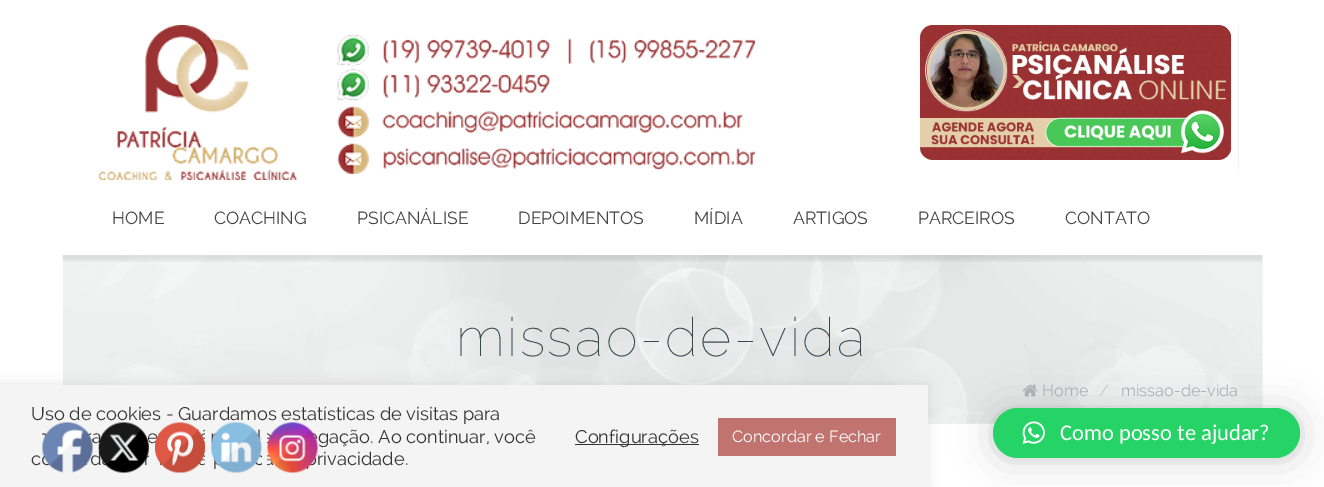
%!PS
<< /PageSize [1324 487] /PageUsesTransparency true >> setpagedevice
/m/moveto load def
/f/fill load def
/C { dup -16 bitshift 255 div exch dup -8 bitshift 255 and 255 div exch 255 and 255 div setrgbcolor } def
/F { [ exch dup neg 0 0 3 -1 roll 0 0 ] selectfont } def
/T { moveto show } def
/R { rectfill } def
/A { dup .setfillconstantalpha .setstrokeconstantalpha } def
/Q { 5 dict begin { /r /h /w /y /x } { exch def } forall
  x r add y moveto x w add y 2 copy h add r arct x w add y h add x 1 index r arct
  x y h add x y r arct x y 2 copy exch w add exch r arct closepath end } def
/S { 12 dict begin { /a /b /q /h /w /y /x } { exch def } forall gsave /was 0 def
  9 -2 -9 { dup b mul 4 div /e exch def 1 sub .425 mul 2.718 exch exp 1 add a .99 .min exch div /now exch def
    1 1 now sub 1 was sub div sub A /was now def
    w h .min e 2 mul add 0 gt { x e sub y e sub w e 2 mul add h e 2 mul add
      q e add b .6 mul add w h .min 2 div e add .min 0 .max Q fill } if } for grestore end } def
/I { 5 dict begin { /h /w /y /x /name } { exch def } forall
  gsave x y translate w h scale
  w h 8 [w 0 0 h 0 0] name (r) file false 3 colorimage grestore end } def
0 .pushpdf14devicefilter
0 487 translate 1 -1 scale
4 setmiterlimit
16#FFFFFF C
0 0 1324 487 R
(1.rgb) 98 25 657 155 I
16#F2F2F2 C
1238 25 1 145 R
(2.rgb) 920 25 312 135 I
/Raleway-Regular 17.5 F
16#444444 C
(HOME) 112 224 T
(COACHING) 214 224 T
(PSICANÁLISE) 357 224 T
(DEPOIMENTOS) 518 224 T
(MÍDIA) 694 224 T
(ARTIGOS) 793 224 T
(PARCEIROS) 918 224 T
(CONTATO) 1065 224 T
16#F7F9F9 C
63 255 1200 169 R
(4.rgb) 63 255 1200 169 I
(3.rgb) 62 255 1201 7 I
/Raleway-Thin 53.75 F
16#39464E C
456 356 m 2.5 0 (missao-de-vida) ashow
(5.rgb) 1022 384 16 13 I
/Raleway-Regular 16.25 F
16#B2B3BA C
(Home) 1042 396 T
16#CBCCD0 C
(/) 1099 396 T
16#B2B3BA C
(missao-de-vida) 1121 396 T
16#ACABAB C
0 384 928 102 0 6 .3 S
16#F4F4F4 C
0 385 928 102 R
/Raleway-Regular 18.3 F
16#333333 C
(Uso de cookies - Guardamos estatísticas de visitas para) 31 420 T
(a) 92 443 T
(e) 147 443 T
(gação. Ao continuar, você) 318 443 T
(c) 31 465 T
(d) 90 465 T
(rivacidade.) 317 465 T
575 444 124 1 R
(Configurações) 575 443 T
16#C0736F C
718 418 178 38 R
/Raleway-Regular 16.25 F
16#FFFFFF C
(Concordar e Fechar) 732 442 T
(6.rgb) 42 422 51 51 I
(7.rgb) 98 422 51 51 I
(8.rgb) 155 422 50 51 I
(9.rgb) 211 422 51 51 I
(10.rgb) 267 422 51 51 I
16#000000 C
993 410 307 50 25 20 .16 S
993 409 307 50 25 4 .06 S
16#25D366 C
993 408 307 50 25 Q f
(11.rgb) 1022 421 23 23 I
/Carlito-Regular 22.5 F
16#FFFFFF C
(Como posso te ajudar?) 1060 440 T
.poppdf14devicefilter showpage
